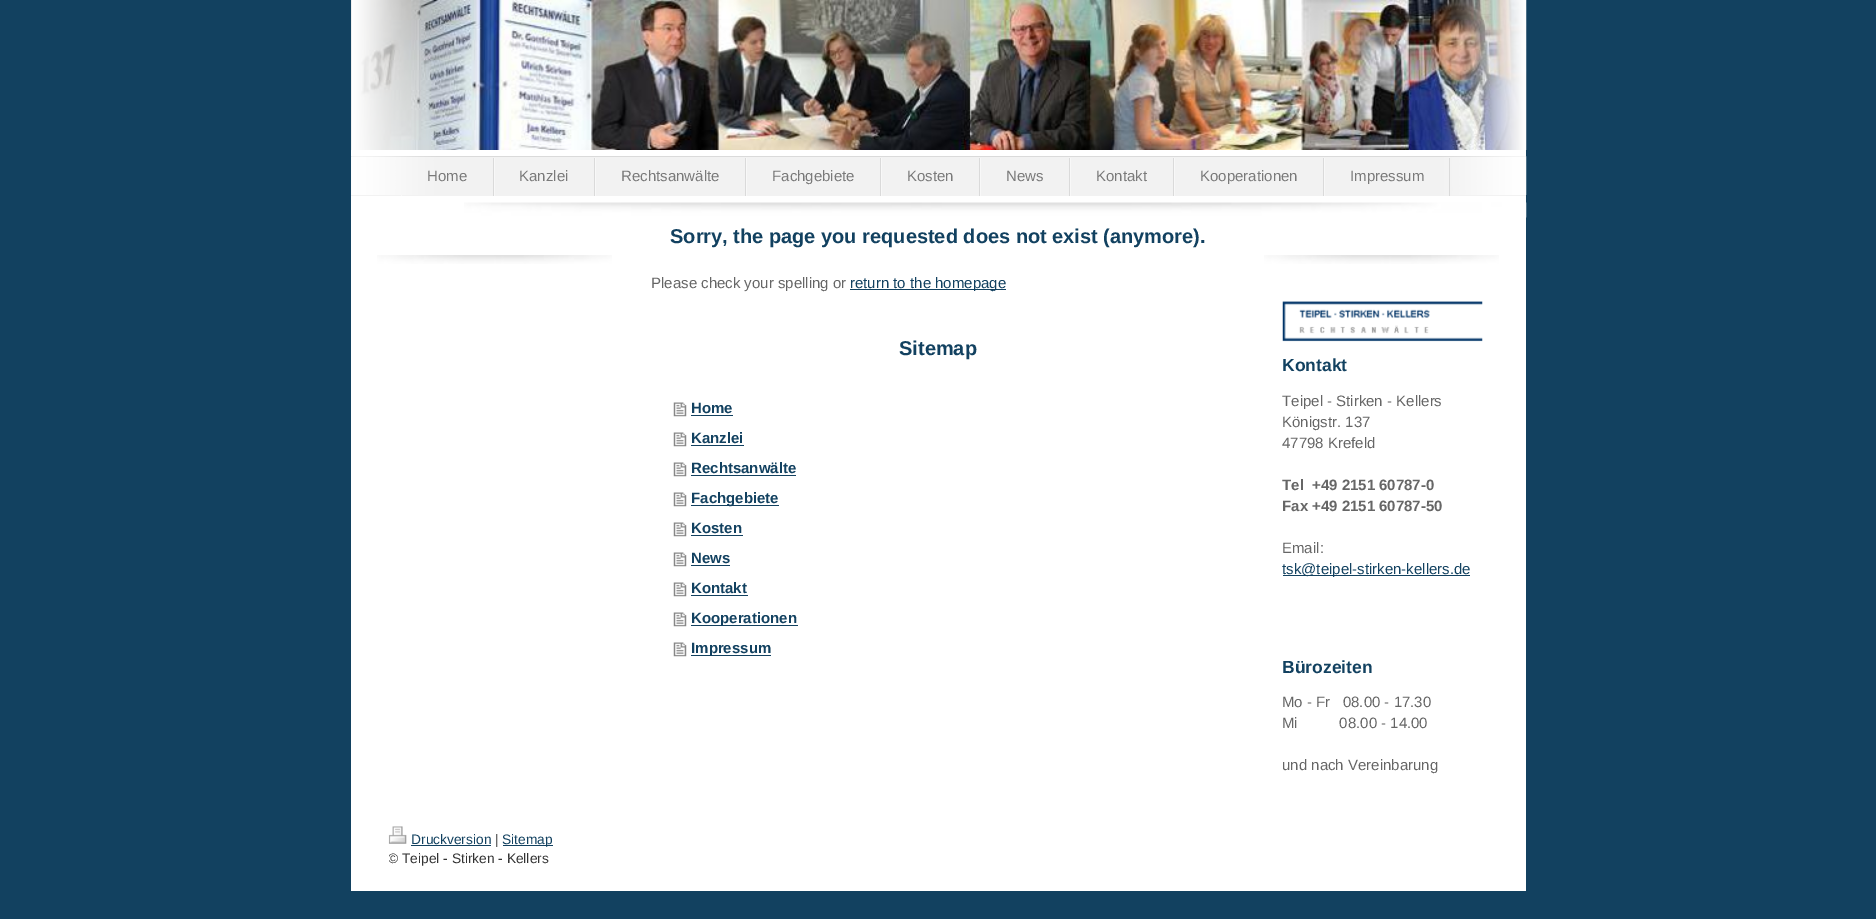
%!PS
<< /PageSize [1876 919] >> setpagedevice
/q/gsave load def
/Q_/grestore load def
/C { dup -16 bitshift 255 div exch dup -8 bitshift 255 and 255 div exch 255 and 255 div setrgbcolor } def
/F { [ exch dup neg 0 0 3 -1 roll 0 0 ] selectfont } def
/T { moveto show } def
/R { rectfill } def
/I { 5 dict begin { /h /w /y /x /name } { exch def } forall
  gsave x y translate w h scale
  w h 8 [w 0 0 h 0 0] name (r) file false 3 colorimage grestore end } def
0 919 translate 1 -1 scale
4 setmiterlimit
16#124160 C
0 0 1876 919 R
16#FFFFFF C
351 0 1175 891 R
(1.rgb) 351 0 1176 150 I
(2.rgb) 351 0 85 150 I
(3.rgb) 1442 0 85 150 I
16#F2F2F2 C
351 157 1175 39 R
16#DADADA C
351 156 1175 1 R
(4.rgb) 351 156 1176 39 I
493 158 1 38 R
16#F8F8F8 C
401 195 1 1 R
/LiberationSans-Regular 15 F
16#7A7A7A C
(Home) 427 181 T
16#DADADA C
594 158 1 38 R
16#F8F8F8 C
494 158 1 38 R
16#7A7A7A C
(Kanzlei) 519 181 T
16#DADADA C
745 158 1 38 R
16#F8F8F8 C
595 158 1 38 R
16#7A7A7A C
(Rechtsanwälte) 621 181 T
16#DADADA C
880 158 1 38 R
16#F8F8F8 C
746 158 1 38 R
16#7A7A7A C
(Fachgebiete) 772 181 T
16#DADADA C
979 158 1 38 R
16#F8F8F8 C
881 158 1 38 R
16#7A7A7A C
(Kosten) 907 181 T
16#DADADA C
1069 158 1 38 R
16#F8F8F8 C
980 158 1 38 R
16#7A7A7A C
(News) 1006 181 T
16#DADADA C
1173 158 1 38 R
16#F8F8F8 C
1070 158 1 38 R
16#7A7A7A C
(Kontakt) 1096 181 T
16#DADADA C
1323 158 1 38 R
16#F8F8F8 C
1174 158 1 38 R
16#7A7A7A C
(Kooperationen) 1200 181 T
16#DADADA C
1449 158 1 38 R
16#F8F8F8 C
1324 158 1 38 R
16#7A7A7A C
(Impressum) 1350 181 T
(5.rgb) 464 202 1063 16 I
(6.rgb) 377 255 235 9 I
/LiberationSans-Bold 20 F
16#124160 C
(Sorry, the page you requested does not exist \(anymore\).) 670 243 T
/LiberationSans-Regular 15 F
16#666666 C
(Please check your spelling or) 651 288 T
16#124160 C
850 289 156 1 R
(return to the homepage) 850 288 T
/LiberationSans-Bold 20 F
(Sitemap) 899 355 T
(7.rgb) 673 402 14 15 I
/LiberationSans-Bold 15 F
(Home) 691 413 T
691 415 42 1 R
(7.rgb) 673 432 14 15 I
(Kanzlei) 691 443 T
691 445 53 1 R
(7.rgb) 673 462 14 15 I
(Rechtsanwälte) 691 473 T
691 475 105 1 R
(7.rgb) 673 492 14 15 I
691 505 88 1 R
(Fachgebiete) 691 503 T
(7.rgb) 673 522 14 15 I
(Kosten) 691 533 T
691 535 52 1 R
(7.rgb) 673 552 14 15 I
(News) 691 563 T
691 565 39 1 R
(8.rgb) 673 582 14 15 I
(Kontakt) 691 593 T
691 595 57 1 R
(7.rgb) 673 612 14 15 I
691 625 107 1 R
(Kooperationen) 691 623 T
(7.rgb) 673 642 14 15 I
691 655 80 1 R
(Impressum) 691 653 T
(9.rgb) 1264 255 235 9 I
(10.rgb) 1282 301 201 41 I
/LiberationSans-Bold 17.5 F
(Kontakt) 1282 371 T
/LiberationSans-Regular 15 F
16#666666 C
(Teipel - Stirken - Kellers) 1282 406 T
(Königstr. 137) 1282 427 T
(47798 Krefeld) 1282 448 T
/LiberationSans-Bold 15 F
(Tel  +49 2151 60787-0) 1282 490 T
(Fax +49 2151 60787-50) 1282 511 T
/LiberationSans-Regular 15 F
(Email:) 1282 553 T
16#124160 C
1283 575 187 1 R
(tsk@teipel-stirken-kellers.de) 1282 574 T
/LiberationSans-Bold 17.5 F
(Bürozeiten) 1282 673 T
/LiberationSans-Regular 15 F
16#666666 C
(Mo - Fr   08.00 - 17.30) 1282 707 T
(Mi          08.00 - 14.00) 1282 728 T
(und nach Vereinbarung) 1282 770 T
(11.rgb) 388 826 19 18 I
/LiberationSans-Regular 13.75 F
16#124160 C
(Druckversion) 411 844 T
411 845 80 1 R
16#333333 C
(|) 495 844 T
16#124160 C
503 845 50 1 R
(Sitemap) 502 844 T
q
389 826 1100 43 rectclip
16#333333 C
(© Teipel - Stirken - Kellers) 388 863 T
Q_
showpage
